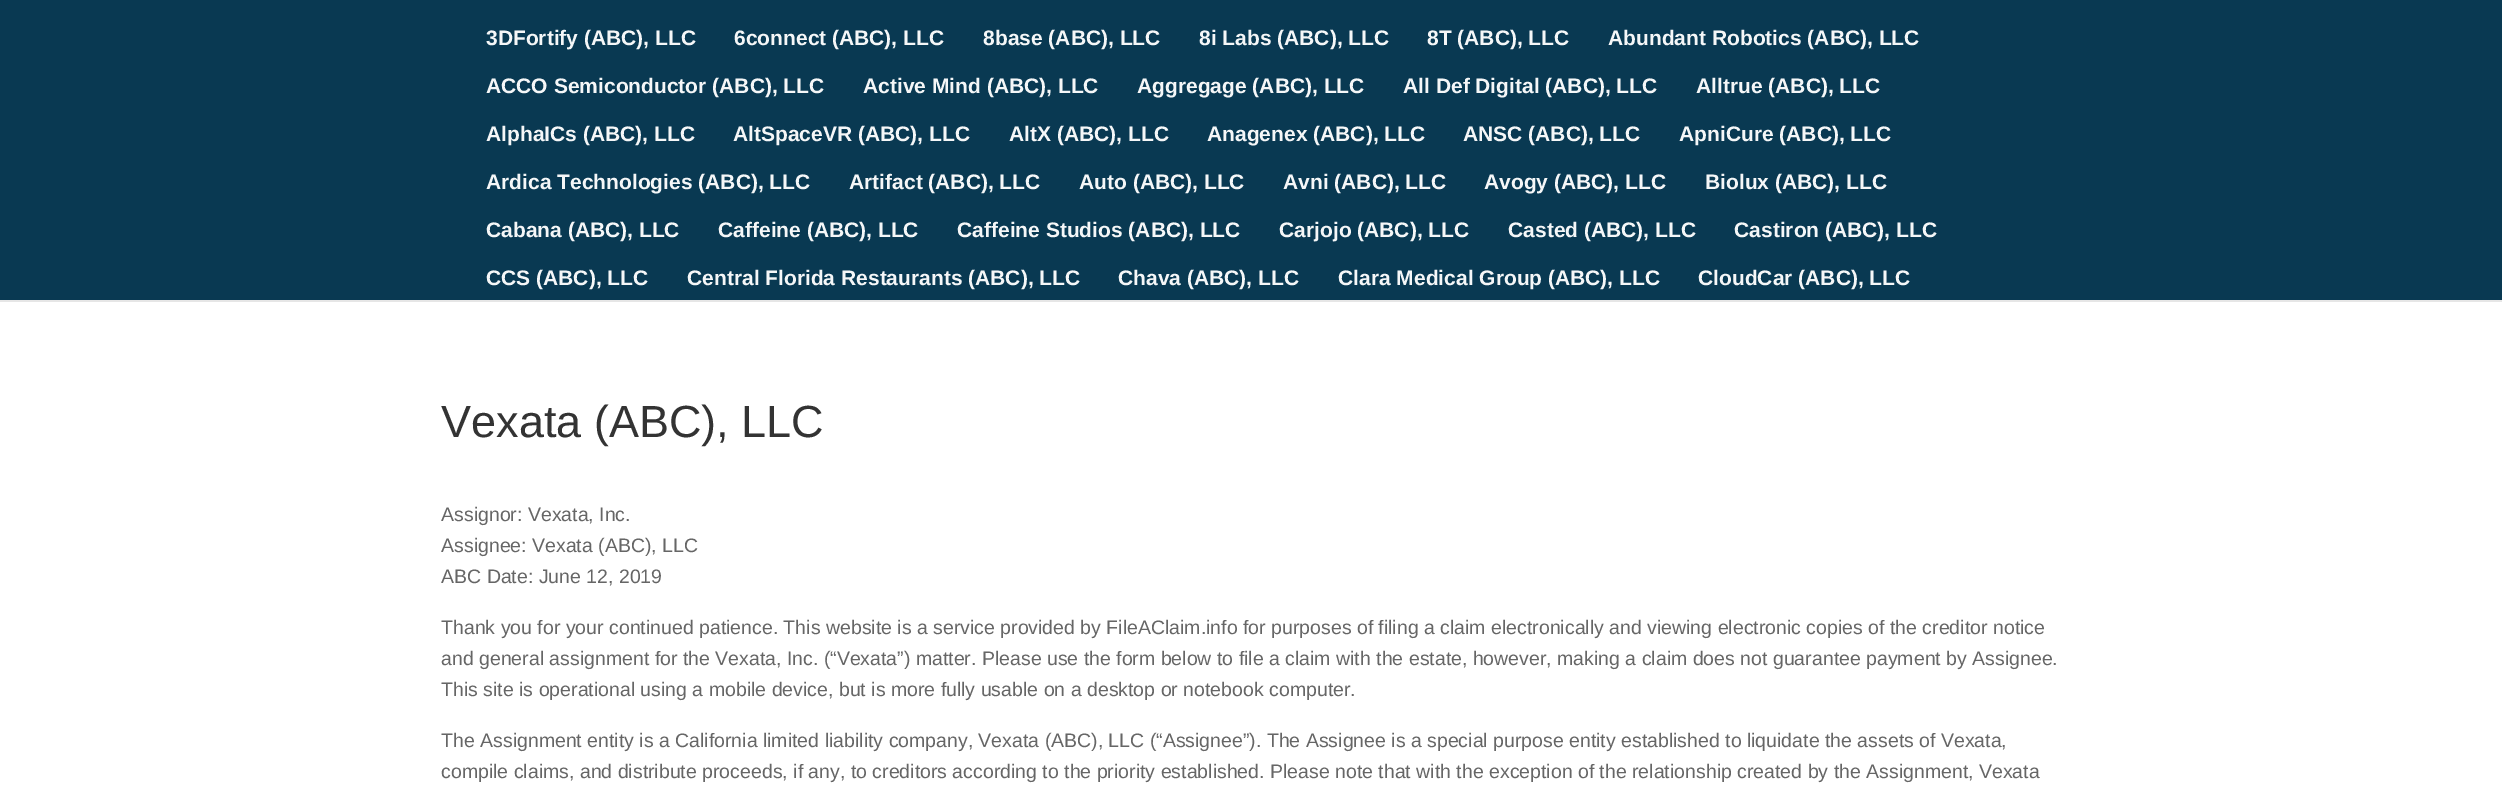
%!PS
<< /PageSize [2502 790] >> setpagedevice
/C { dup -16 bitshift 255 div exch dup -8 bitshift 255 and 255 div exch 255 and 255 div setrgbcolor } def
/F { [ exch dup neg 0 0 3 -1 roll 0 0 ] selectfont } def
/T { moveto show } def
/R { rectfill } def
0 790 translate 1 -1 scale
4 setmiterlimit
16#FFFFFF C
0 0 2502 790 R
16#E6E6E6 C
0 300 2502 2 R
16#093952 C
0 0 2502 300 R
/LiberationSans-Bold 21 F
16#F5F7F8 C
(3DFortify \(ABC\), LLC) 486 45 T
(6connect \(ABC\), LLC) 734 45 T
(8base \(ABC\), LLC) 983 45 T
(8i Labs \(ABC\), LLC) 1199 45 T
(8T \(ABC\), LLC) 1427 45 T
(Abundant Robotics \(ABC\), LLC) 1608 45 T
(ACCO Semiconductor \(ABC\), LLC) 486 93 T
(Active Mind \(ABC\), LLC) 863 93 T
(Aggregage \(ABC\), LLC) 1137 93 T
(All Def Digital \(ABC\), LLC) 1403 93 T
(Alltrue \(ABC\), LLC) 1696 93 T
(AlphaICs \(ABC\), LLC) 486 141 T
(AltSpaceVR \(ABC\), LLC) 733 141 T
(AltX \(ABC\), LLC) 1009 141 T
(Anagenex \(ABC\), LLC) 1207 141 T
(ANSC \(ABC\), LLC) 1463 141 T
(ApniCure \(ABC\), LLC) 1679 141 T
(Ardica Technologies \(ABC\), LLC) 486 189 T
(Artifact \(ABC\), LLC) 849 189 T
(Auto \(ABC\), LLC) 1079 189 T
(Avni \(ABC\), LLC) 1283 189 T
(Avogy \(ABC\), LLC) 1484 189 T
(Biolux \(ABC\), LLC) 1705 189 T
(Cabana \(ABC\), LLC) 486 237 T
(Caffeine \(ABC\), LLC) 718 237 T
(Caffeine Studios \(ABC\), LLC) 957 237 T
(Carjojo \(ABC\), LLC) 1279 237 T
(Casted \(ABC\), LLC) 1508 237 T
(Castiron \(ABC\), LLC) 1734 237 T
(CCS \(ABC\), LLC) 486 285 T
(Central Florida Restaurants \(ABC\), LLC) 687 285 T
(Chava \(ABC\), LLC) 1118 285 T
(Clara Medical Group \(ABC\), LLC) 1338 285 T
(CloudCar \(ABC\), LLC) 1698 285 T
/LiberationSans-Regular 45 F
16#333333 C
(Vexata \(ABC\), LLC) 441 437 T
/LiberationSans-Regular 19.5 F
16#666666 C
(Assignor: Vexata, Inc.) 441 521 T
(Assignee: Vexata \(ABC\), LLC) 441 552 T
(ABC Date: June 12, 2019) 441 583 T
(Thank you for your continued patience. This website is a service provided by FileAClaim.info for purposes of filing a claim electronically and viewing electronic copies of the creditor notice) 441 634 T
(and general assignment for the Vexata, Inc. \(“Vexata”\) matter. Please use the form below to file a claim with the estate, however, making a claim does not guarantee payment by Assignee.) 441 665 T
(This site is operational using a mobile device, but is more fully usable on a desktop or notebook computer.) 441 696 T
(The Assignment entity is a California limited liability company, Vexata \(ABC\), LLC \(“Assignee”\). The Assignee is a special purpose entity established to liquidate the assets of Vexata,) 441 747 T
(compile claims, and distribute proceeds, if any, to creditors according to the priority established. Please note that with the exception of the relationship created by the Assignment, Vexata) 441 778 T
showpage
